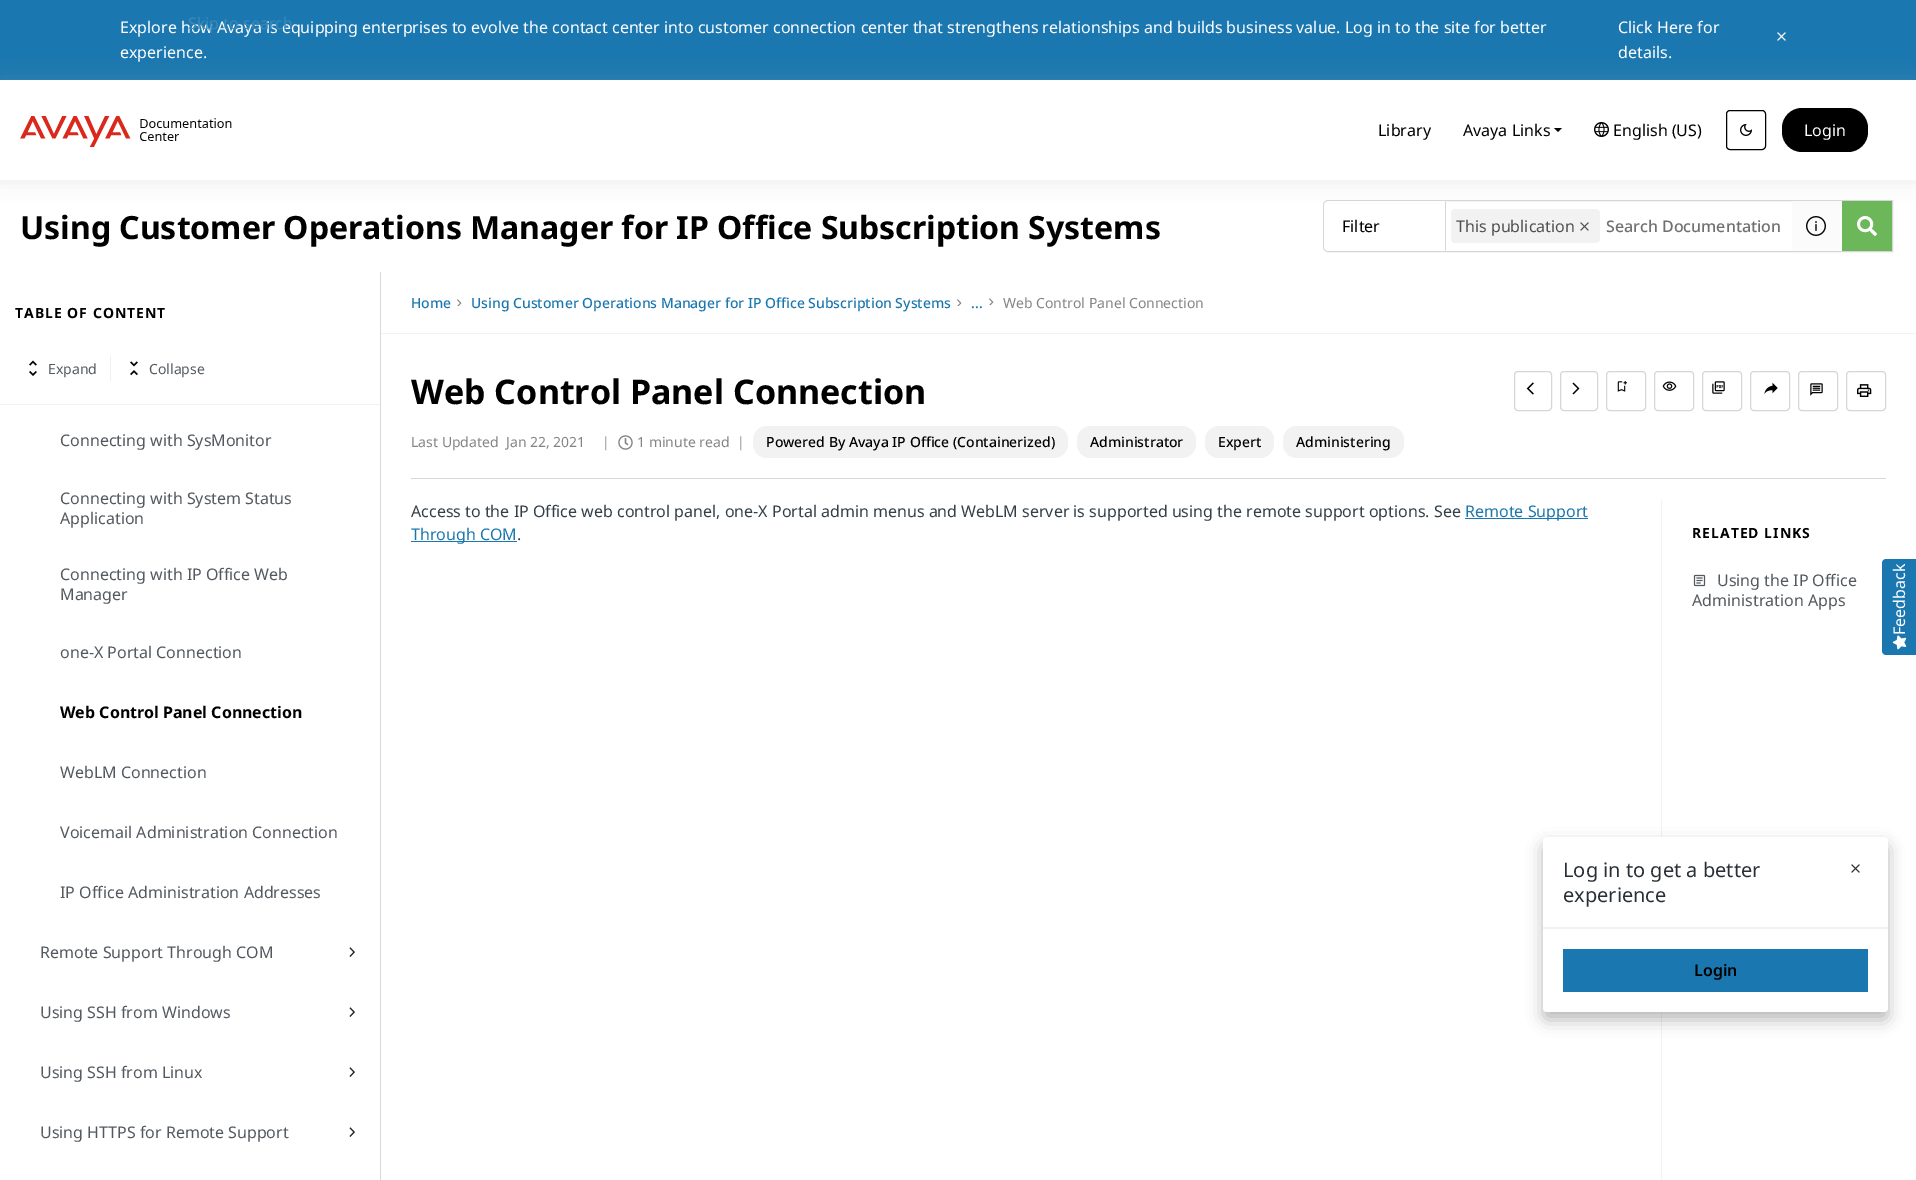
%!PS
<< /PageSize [1916 1180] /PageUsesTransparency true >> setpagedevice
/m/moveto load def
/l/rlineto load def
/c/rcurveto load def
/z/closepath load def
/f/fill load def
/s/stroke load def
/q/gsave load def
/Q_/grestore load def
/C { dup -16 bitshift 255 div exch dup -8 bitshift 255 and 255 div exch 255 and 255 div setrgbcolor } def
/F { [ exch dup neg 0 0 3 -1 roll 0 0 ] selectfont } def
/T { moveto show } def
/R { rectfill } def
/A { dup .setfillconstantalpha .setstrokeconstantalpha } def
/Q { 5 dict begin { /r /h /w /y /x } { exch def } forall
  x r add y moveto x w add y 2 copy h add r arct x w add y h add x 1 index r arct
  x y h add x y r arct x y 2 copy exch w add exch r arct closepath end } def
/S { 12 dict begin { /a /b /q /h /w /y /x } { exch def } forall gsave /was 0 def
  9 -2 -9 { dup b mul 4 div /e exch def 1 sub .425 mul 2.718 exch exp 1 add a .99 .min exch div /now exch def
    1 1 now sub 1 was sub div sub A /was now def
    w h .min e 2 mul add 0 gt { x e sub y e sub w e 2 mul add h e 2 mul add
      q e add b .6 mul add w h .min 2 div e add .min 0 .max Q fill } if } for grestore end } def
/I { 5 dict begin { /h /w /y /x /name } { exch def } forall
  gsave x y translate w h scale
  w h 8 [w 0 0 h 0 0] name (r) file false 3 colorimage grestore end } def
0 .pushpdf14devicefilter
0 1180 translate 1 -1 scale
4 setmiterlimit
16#FFFFFF C
0 0 1916 1180 R
16#1B77AF C
0 0 1916 80 R
/NotoSans-Regular 16 F
16#FFFFFF C
(Explore how Avaya is equipping enterprises to evolve the contact center into customer connection center that strengthens relationships and builds business value. Log in to the site for better) 120 33 T
16#3989BA C
(Skip to search) 188 29 T
16#FFFFFF C
(experience.) 120 58 T
(Click Here for) 1618 33 T
(details.) 1618 58 T
(1.rgb) 1777 32 9 9 I
16#D6D6D6 C
1328 200.5 m 564.5 0 l 0 51 l -564.5 0 l -2.5 0 -4.5 -2 -4.5 -4.5 c 0 -42 l 0 -2.5 2 -4.5 4.5 -4.5 c z s
16#FFFFFF C
1329 201 m 117 0 l 0 50 l -117 0 l -3 0 -5 -2 -5 -5 c 0 -40 l 0 -3 2 -5 5 -5 c z f
16#D6D6D6 C
1446 201 m -1 1 l 0 48 l 1 1 l z f
16#F2F2F2 C
1451 209 149 34 4 Q f
16#FBFBFB C
1792 201 50 50 R
16#6BB75A C
1842 201 50 50 R
q
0 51 m 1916 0 l 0 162 l -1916 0 l z 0 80 m 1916 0 l 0 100 l -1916 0 l z eoclip newpath
16#B5B7B3 C
0 82 1916 100 0 10 .25 S
Q_
(2.rgb) 20 116 212 31 I
16#000000 C
(Library) 1378 136 T
(Avaya Links) 1463 136 T
1554 128 m 8 0 l -4 4 l z f
(3.rgb) 1594 122 15 15 I
(English \(US\)) 1613 136 T
1726.5 110.5 39 39 3.5 Q s
(4.rgb) 1740 124 12 12 I
1782 108 86 44 20 Q f
16#FFFFFF C
(Login) 1804 136 T
/NotoSans-Bold 32 F
16#000000 C
(Using Customer Operations Manager for IP Office Subscription Systems) 20 239 T
/NotoSans-Regular 16 F
(Filter) 1342 232 T
16#4F4F4F C
(This publication) 1456 232 T
(5.rgb) 1580 222 9 9 I
/NotoSans-Medium 16 F
16#707070 C
(Search Documentation) 1606 232 T
(6.rgb) 1806 216 20 20 I
(7.rgb) 1857 216 20 20 I
16#D8D8D8 C
380 272 1 908 R
16#F2F2F2 C
0 404 380 1 R
/NotoSans-Bold 14 F
16#000000 C
15 318 m 1 0 (TABLE OF CONTENT) ashow
(8.rgb) 29 360 8 16 I
/NotoSans-Regular 14 F
16#53595E C
(Expand) 48 374 T
16#EFF0F0 C
110 356 1 25 R
(9.rgb) 130 361 8 15 I
16#53595E C
(Collapse) 149 374 T
/NotoSans-Regular 16 F
(Connecting with SysMonitor) 60 446 T
(Connecting with System Status) 60 504 T
(Application) 60 524 T
(Connecting with IP Office Web) 60 580 T
(Manager) 60 600 T
(one-X Portal Connection) 60 658 T
/NotoSans-Bold 16 F
16#000000 C
(Web Control Panel Connection) 60 718 T
/NotoSans-Regular 16 F
16#53595E C
(WebLM Connection) 60 778 T
(Voicemail Administration Connection) 60 838 T
(IP Office Administration Addresses) 60 898 T
(Remote Support Through COM) 40 958 T
(10.rgb) 349 947 6 10 I
(Using SSH from Windows) 40 1018 T
(10.rgb) 349 1007 6 10 I
(Using SSH from Linux) 40 1078 T
(10.rgb) 349 1067 6 10 I
(Using HTTPS for Remote Support) 40 1138 T
(10.rgb) 349 1127 6 10 I
16#F2F2F2 C
381 333 1535 1 R
/NotoSans-Medium 14 F
16#1B77AF C
(Home) 411 308 T
(11.rgb) 457 299 5 7 I
(Using Customer Operations Manager for IP Office Subscription Systems) 471 308 T
(11.rgb) 957 299 5 7 I
(11.rgb) 989 298 5 7 I
(...) 971 308 T
/NotoSans-Regular 14 F
16#838486 C
(Web Control Panel Connection) 1003 308 T
16#D8D8D8 C
411 478 1475 1 R
/NotoSans-Bold 34 F
16#000000 C
(Web Control Panel Connection) 411 404 T
16#D6D6D6 C
1514.5 371.5 37 39 3.5 Q s
(12.rgb) 1526 382 8 13 I
1560.5 371.5 37 39 3.5 Q s
(13.rgb) 1572 382 8 13 I
1606.5 371.5 39 39 3.5 Q s
(14.rgb) 1617 381 10 11 I
1654.5 371.5 39 39 3.5 Q s
(15.rgb) 1662 381 15 10 I
1702.5 371.5 39 39 3.5 Q s
(16.rgb) 1712 381 13 13 I
1750.5 371.5 39 39 3.5 Q s
(17.rgb) 1764 382 14 12 I
1798.5 371.5 39 39 3.5 Q s
(18.rgb) 1810 383 13 13 I
1846.5 371.5 39 39 3.5 Q s
(19.rgb) 1857 384 15 13 I
/NotoSans-Regular 14 F
16#838486 C
(Last Updated) 411 447 T
(Jan 22, 2021) 506 447 T
16#93979A C
(|) 602 447 T
(20.rgb) 618 435 15 15 I
16#838486 C
(1 minute read) 637 447 T
16#93979A C
(|) 737 447 T
16#F2F2F2 C
753 426 315 32 14 Q f
/NotoSans-Medium 14 F
16#000000 C
(Powered By Avaya IP Office \(Containerized\)) 766 447 T
16#F2F2F2 C
1077 426 119 32 14 Q f
16#000000 C
(Administrator) 1090 447 T
16#F2F2F2 C
1205 426 69 32 14 Q f
16#000000 C
(Expert) 1218 447 T
16#F2F2F2 C
1283 426 121 32 14 Q f
16#000000 C
(Administering) 1296 447 T
/NotoSans-Regular 16 F
16#323E48 C
(Access to the IP Office web control panel, one-X Portal admin menus and WebLM server is supported using the remote support options. See) 411 517 T
16#1B77AF C
1465 518 123 1 R
(Remote Support) 1465 517 T
411 541 106 1 R
(Through COM) 411 540 T
16#323E48 C
(.) 517 540 T
16#F2F2F2 C
1661 500 1 680 R
/NotoSans-Bold 14 F
16#000000 C
1692 538 m 1 0 (RELATED LINKS) ashow
(21.rgb) 1693 574 13 13 I
/NotoSans-Regular 16 F
16#53595E C
(Using the IP Office) 1717 586 T
(Administration Apps) 1692 606 T
16#000000 C
1543 845 345 175 4 8 .27 S
16#FFFFFF C
1543 837 345 175 4 Q f
16#F1F1F1 C
1543 927 345 2 R
/NotoSans-Regular 20 F
16#282F36 C
(Log in to get a better) 1563 877 T
(experience) 1563 902 T
(22.rgb) 1851 864 9 9 I
16#1B77AF C
1563 949 305 43 R
/NotoSans-SemiBold 16 F
16#000000 C
(Login) 1694 976 T
16#1B77AF C
1882 651 m 0 -88 l 0 -2 2 -4 4 -4 c 30 0 l 0 96 l -30 0 l -2 0 -4 -2 -4 -4 c z f
/NotoSans-Regular 16 F
16#FFFFFF C
q 1905 635 translate -90 rotate 0 0 m (Feedback) show Q_
(23.rgb) 1892 635 15 15 I
.poppdf14devicefilter showpage
